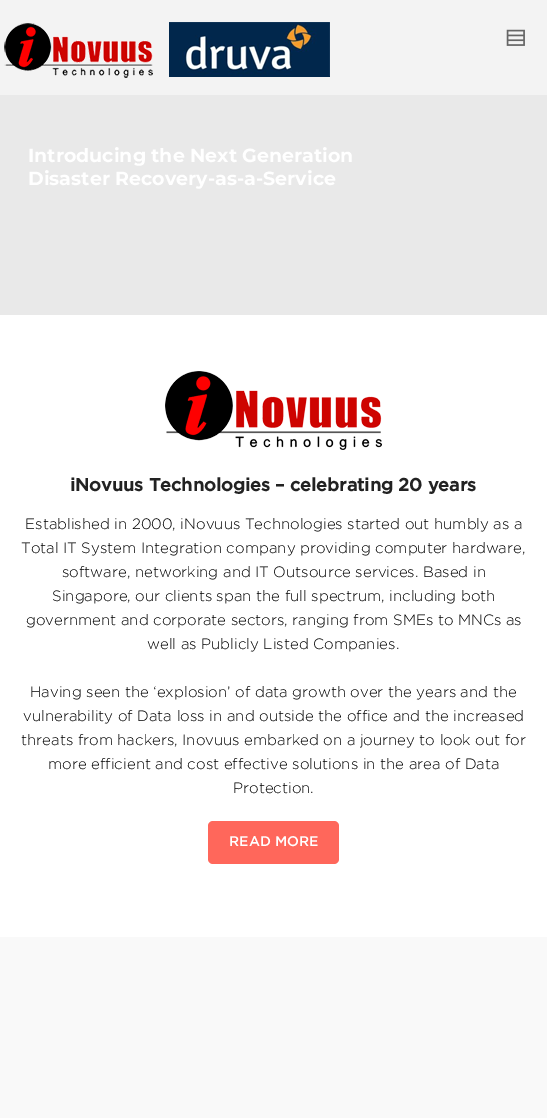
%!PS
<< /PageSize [547 1118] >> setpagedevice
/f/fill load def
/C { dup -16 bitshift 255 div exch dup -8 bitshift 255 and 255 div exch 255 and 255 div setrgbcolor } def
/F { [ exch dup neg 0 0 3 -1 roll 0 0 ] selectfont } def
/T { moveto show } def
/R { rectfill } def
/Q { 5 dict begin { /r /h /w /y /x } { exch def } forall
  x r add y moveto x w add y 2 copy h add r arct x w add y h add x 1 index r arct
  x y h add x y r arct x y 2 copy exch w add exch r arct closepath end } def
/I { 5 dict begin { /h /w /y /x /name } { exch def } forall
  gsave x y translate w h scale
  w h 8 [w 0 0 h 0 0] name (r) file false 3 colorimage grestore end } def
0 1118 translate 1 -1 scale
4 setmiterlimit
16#FFFFFF C
0 0 547 1118 R
16#F3F3F3 C
0 0 547 95 R
(1.rgb) 4 22 326 56 I
(2.rgb) 506 29 19 17 I
16#E9E9E9 C
0 95 547 220 R
/Montserrat-Bold 19 F
16#FFFFFF C
(Introducing the Next Generation) 28 162 T
(Disaster Recovery-as-a-Service) 28 185 T
(3.rgb) 165 371 217 79 I
/Gotham-Bold 18 F
16#222222 C
(iNovuus Technologies – celebrating 20 years) 70 491 T
/Gotham-Light 15 F
16#000000 C
(Established in 2000, iNovuus Technologies started out humbly as a) 25 529 T
(Total IT System Integration company providing computer hardware,) 21 553 T
(software, networking and IT Outsource services. Based in) 62 577 T
(Singapore, our clients span the full spectrum, including both) 52 601 T
(government and corporate sectors, ranging from SMEs to MNCs as) 26 625 T
(well as Publicly Listed Companies.) 147 649 T
(Having seen the ‘explosion’ of data growth over the years and the) 30 697 T
(vulnerability of Data loss in and outside the office and the increased) 23 721 T
(threats from hackers, Inovuus embarked on a journey to look out for) 21 745 T
(more efficient and cost effective solutions in the area of Data) 48 769 T
(Protection.) 233 793 T
16#FF675B C
208 821 131 43 5 Q f
/Gotham-Medium 14 F
16#FFFFFF C
(READ MORE) 229 846 T
16#F9F9F9 C
0 937 547 181 R
showpage
